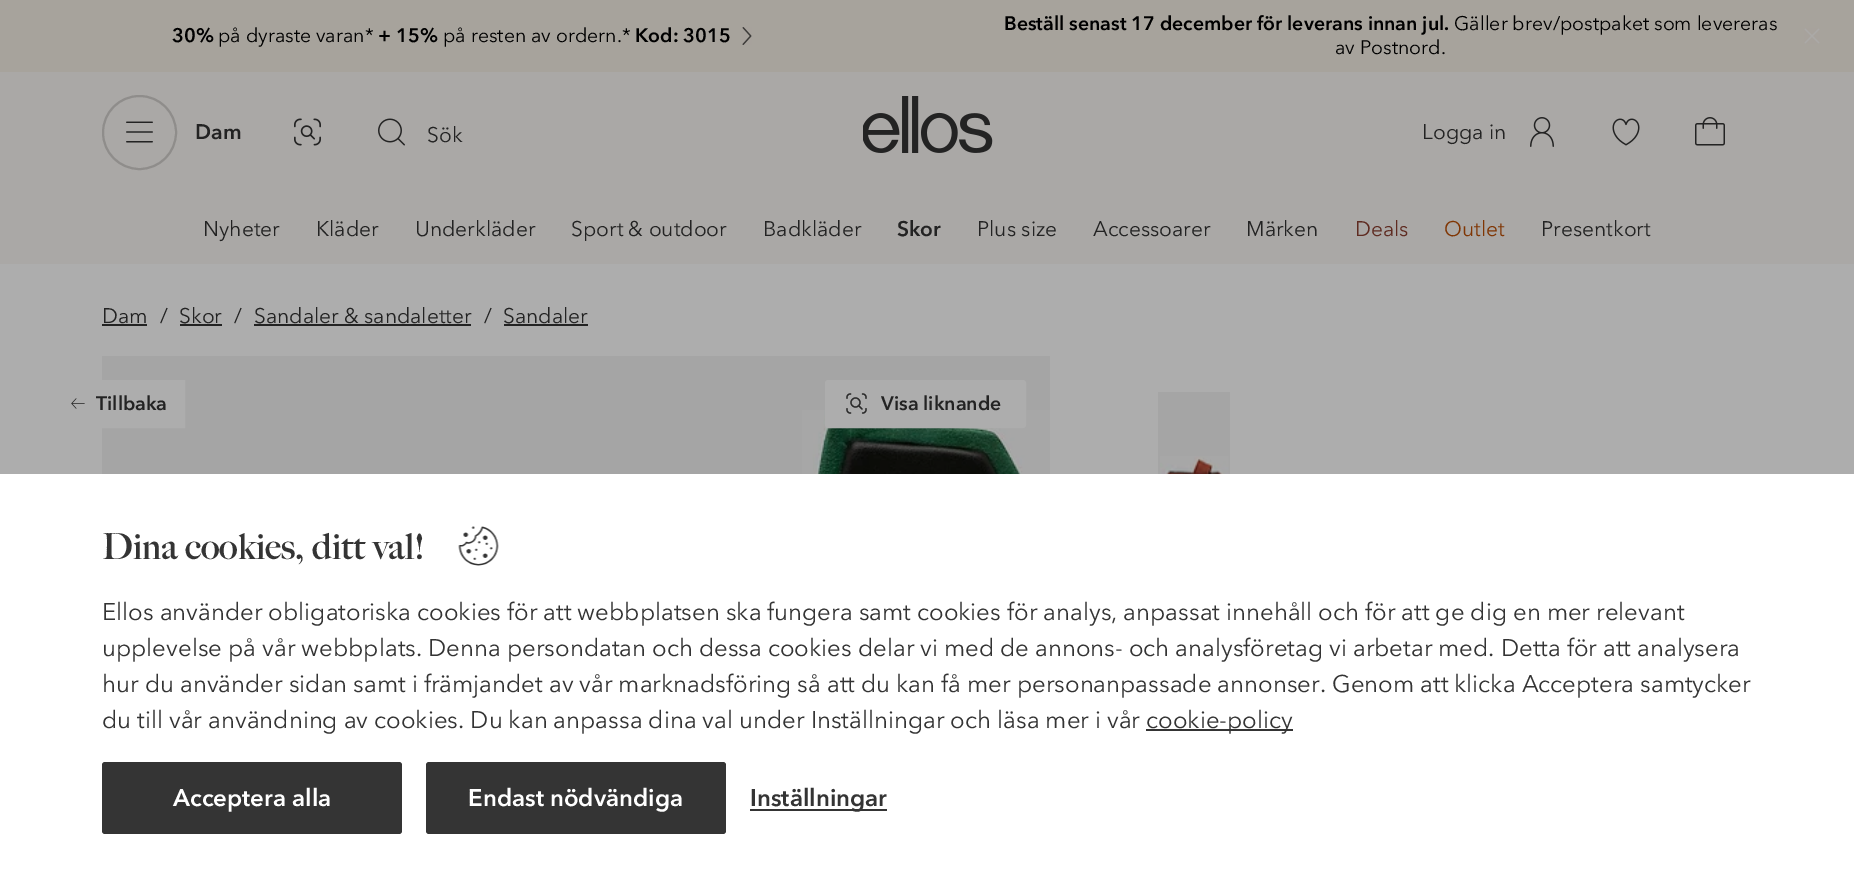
%!PS
<< /PageSize [1854 882] >> setpagedevice
/f/fill load def
/s/stroke load def
/q/gsave load def
/Q_/grestore load def
/w/setlinewidth load def
/C { dup -16 bitshift 255 div exch dup -8 bitshift 255 and 255 div exch 255 and 255 div setrgbcolor } def
/F { [ exch dup neg 0 0 3 -1 roll 0 0 ] selectfont } def
/T { moveto show } def
/R { rectfill } def
/O { newpath 0 360 arc closepath } def
/Q { 5 dict begin { /r /h /w /y /x } { exch def } forall
  x r add y moveto x w add y 2 copy h add r arct x w add y h add x 1 index r arct
  x y h add x y r arct x y 2 copy exch w add exch r arct closepath end } def
/I { 5 dict begin { /h /w /y /x /name } { exch def } forall
  gsave x y translate w h scale
  w h 8 [w 0 0 h 0 0] name (r) file false 3 colorimage grestore end } def
0 882 translate 1 -1 scale
4 setmiterlimit
16#ADADAD C
0 0 1854 882 R
16#A7A39C C
0 0 1854 72 R
/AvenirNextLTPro-Bold 19.5 F
16#000000 C
(30%) 172 42 T
/AvenirNextLTPro-Regular 19.5 F
(på dyraste varan*) 218 42 T
/AvenirNextLTPro-Bold 19.5 F
(+ 15%) 378 42 T
/AvenirNextLTPro-Regular 19.5 F
(på resten av ordern.*) 443 42 T
/AvenirNextLTPro-Bold 19.5 F
(Kod: 3015) 635 42 T
(1.rgb) 742 27 10 18 I
(Beställ senast 17 december för leverans innan jul.) 1004 30 T
/AvenirNextLTPro-Regular 19.5 F
(Gäller brev/postpaket som levereras) 1454 30 T
(av Postnord.) 1335 54 T
(2.rgb) 1804 28 16 16 I
16#AAA8A6 C
0 72 1854 192 R
16#8F8D8B C
2 w
139.5 132.5 36.5 O s
(3.rgb) 126 121 27 22 I
/AvenirNextLTPro-Bold 21 F
16#232323 C
(Dam) 195 139 T
(4.rgb) 294 118 27 28 I
(5.rgb) 378 118 27 28 I
/AvenirNextLTPro-Regular 21 F
(Sök) 427 142 T
(6.rgb) 863 96 130 57 I
(Logga in) 1422 139 T
(7.rgb) 1530 117 24 30 I
(8.rgb) 1612 118 28 28 I
(9.rgb) 1695 117 30 29 I
(Nyheter) 203 236 T
(Kläder) 316 236 T
(Underkläder) 415 236 T
(Sport & outdoor) 571 236 T
(Badkläder) 763 236 T
/AvenirNextLTPro-Bold 21 F
(Skor) 897 236 T
/AvenirNextLTPro-Regular 21 F
(Plus size) 977 236 T
(Accessoarer) 1093 236 T
(Märken) 1246 236 T
16#5F2B21 C
(Deals) 1355 236 T
16#803604 C
(Outlet) 1444 236 T
16#232323 C
(Presentkort) 1541 236 T
(Dam) 102 323 T
102 324 45 2 R
(/) 160 323 T
(Skor) 179 323 T
180 324 42 2 R
(/) 234 323 T
(Sandaler & sandaletter) 254 323 T
254 324 217 2 R
(/) 484 323 T
(Sandaler) 503 323 T
504 324 84 2 R
16#A5A5A5 C
102 356 948 118 R
16#ADADAD C
102 382 81 44 R
55 381 129 46 rectstroke
(10.rgb) 71 398 14 11 I
/AvenirNextLTPro-Bold 19.5 F
16#232323 C
(Tillbaka) 96 410 T
(11.rgb) 802 410 248 64 I
16#ADADAD C
826 381 199 46 2 Q q f Q_
s
(12.rgb) 846 393 21 21 I
16#232323 C
(Visa liknande) 881 410 T
16#A5A5A5 C
1158 392 72 82 R
(13.rgb) 1160 456 69 18 I
16#FFFFFF C
0 474 1854 408 R
/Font-Bold 36 F
16#343434 C
(Dina cookies, ditt val!) 102 559 T
(14.rgb) 458 526 41 40 I
/AvenirNextLTPro-Regular 24 F
(Ellos använder obligatoriska cookies för att webbplatsen ska fungera samt cookies för analys, anpassat innehåll och för att ge dig en mer relevant) 102 620 T
(upplevelse på vår webbplats. Denna persondatan och dessa cookies delar vi med de annons- och analysföretag vi arbetar med. Detta för att analysera) 102 656 T
(hur du använder sidan samt i främjandet av vår marknadsföring så att du kan få mer personanpassade annonser. Genom att klicka Acceptera samtycker) 102 692 T
(du till vår användning av cookies. Du kan anpassa dina val under Inställningar och läsa mer i vår) 102 728 T
1146 729 147 2 R
(cookie-policy) 1146 728 T
102 762 300 72 3 Q f
/AvenirNextLTPro-Bold 24 F
16#FFFFFF C
(Acceptera alla) 173 806 T
16#343434 C
426 762 300 72 3 Q f
16#FFFFFF C
(Endast nödvändiga) 468 806 T
16#343434 C
750 809 137 2 R
(Inställningar) 750 806 T
showpage
